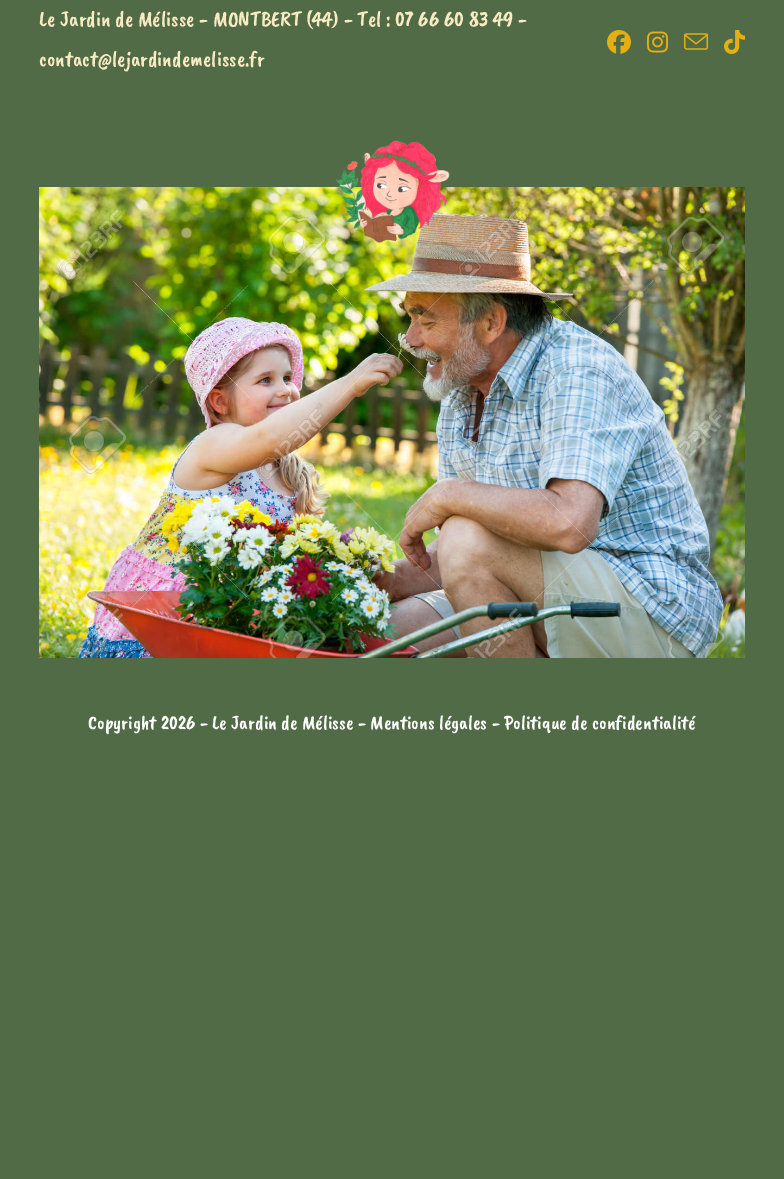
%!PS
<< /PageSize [784 1179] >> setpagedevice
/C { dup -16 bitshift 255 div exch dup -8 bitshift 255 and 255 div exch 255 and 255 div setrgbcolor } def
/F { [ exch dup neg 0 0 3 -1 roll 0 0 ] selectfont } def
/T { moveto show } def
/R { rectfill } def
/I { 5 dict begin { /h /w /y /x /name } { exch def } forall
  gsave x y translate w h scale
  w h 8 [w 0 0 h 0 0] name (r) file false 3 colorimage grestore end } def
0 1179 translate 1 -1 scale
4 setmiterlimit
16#506B45 C
0 0 784 1179 R
/CaveatBrush-Regular 22 F
16#F8EBC4 C
(Le Jardin de Mélisse - MONTBERT \(44\) - Tel : 07 66 60 83 49 -) 39 26 T
(contact@lejardindemelisse.fr) 39 66 T
(1.rgb) 607 30 24 24 I
(2.rgb) 647 31 21 22 I
(3.rgb) 684 33 24 17 I
(4.rgb) 724 30 21 24 I
(6.rgb) 39 187 706 471 I
(5.rgb) 335 140 115 104 I
/CaveatBrush-Regular 20 F
16#FEFEFE C
(Copyright 2026 - Le Jardin de Mélisse -) 88 729 T
(Mentions légales) 370 729 T
(-) 492 729 T
(Politique de confidentialité) 504 729 T
showpage
